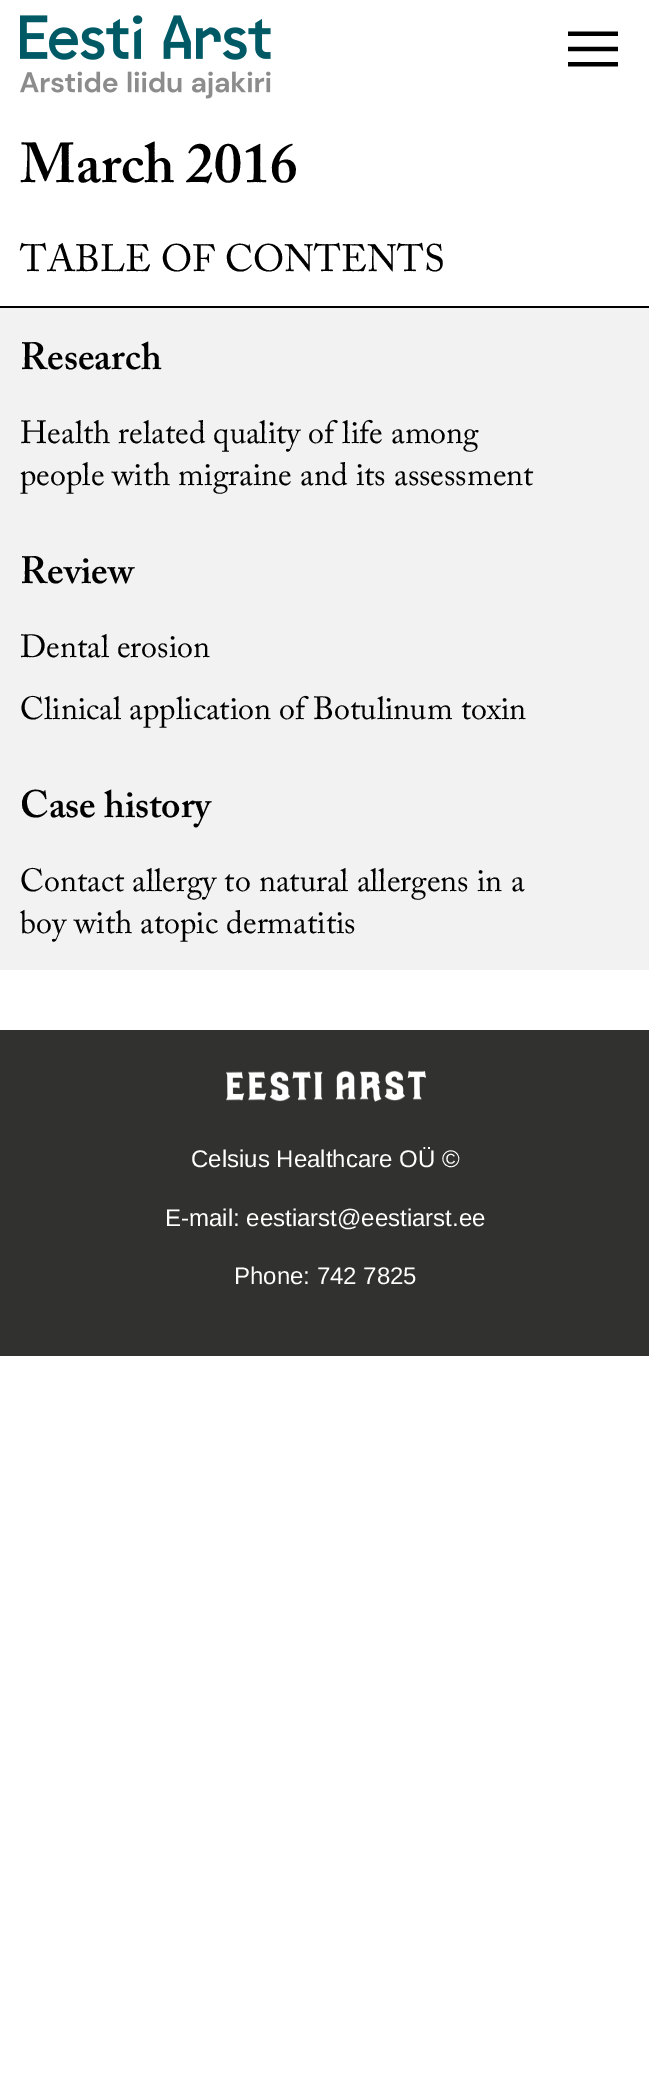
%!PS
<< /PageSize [649 2076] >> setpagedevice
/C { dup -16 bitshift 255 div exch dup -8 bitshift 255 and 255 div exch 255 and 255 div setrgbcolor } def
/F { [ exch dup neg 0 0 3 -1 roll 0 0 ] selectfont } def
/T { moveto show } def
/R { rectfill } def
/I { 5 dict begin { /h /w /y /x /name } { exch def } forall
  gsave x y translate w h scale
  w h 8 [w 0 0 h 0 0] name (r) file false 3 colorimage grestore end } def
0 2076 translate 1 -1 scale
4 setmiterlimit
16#FFFFFF C
0 0 649 2076 R
(1.rgb) 20 15 251 84 I
(2.rgb) 568 31 50 36 I
/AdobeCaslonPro-SemiBold 56 F
16#000000 C
(March 2016) 20 182 T
0 306 649 2 R
/AdobeCaslonPro-Regular 38 F
(TABLE OF CONTENTS) 20 271 T
16#F2F2F2 C
0 308 649 662 R
/AdobeCaslonPro-SemiBold 38 F
16#000000 C
(Research) 20 369 T
/AdobeCaslonPro-Regular 32 F
(Health related quality of life among) 20 443 T
(people with migraine and its assessment) 20 485 T
/AdobeCaslonPro-SemiBold 38 F
(Review) 20 583 T
/AdobeCaslonPro-Regular 32 F
(Dental erosion) 20 657 T
(Clinical application of Botulinum toxin) 20 719 T
/AdobeCaslonPro-SemiBold 38 F
(Case history) 20 817 T
/AdobeCaslonPro-Regular 32 F
(Contact allergy to natural allergens in a) 20 891 T
(boy with atopic dermatitis) 20 933 T
16#31312F C
0 1030 649 326 R
(3.rgb) 226 1070 200 32 I
/LiberationSans-Regular 24 F
16#FFFFFF C
(Celsius Healthcare OÜ ©) 191 1167 T
(E-mail: eestiarst@eestiarst.ee) 165 1226 T
(Phone: 742 7825) 234 1284 T
showpage
